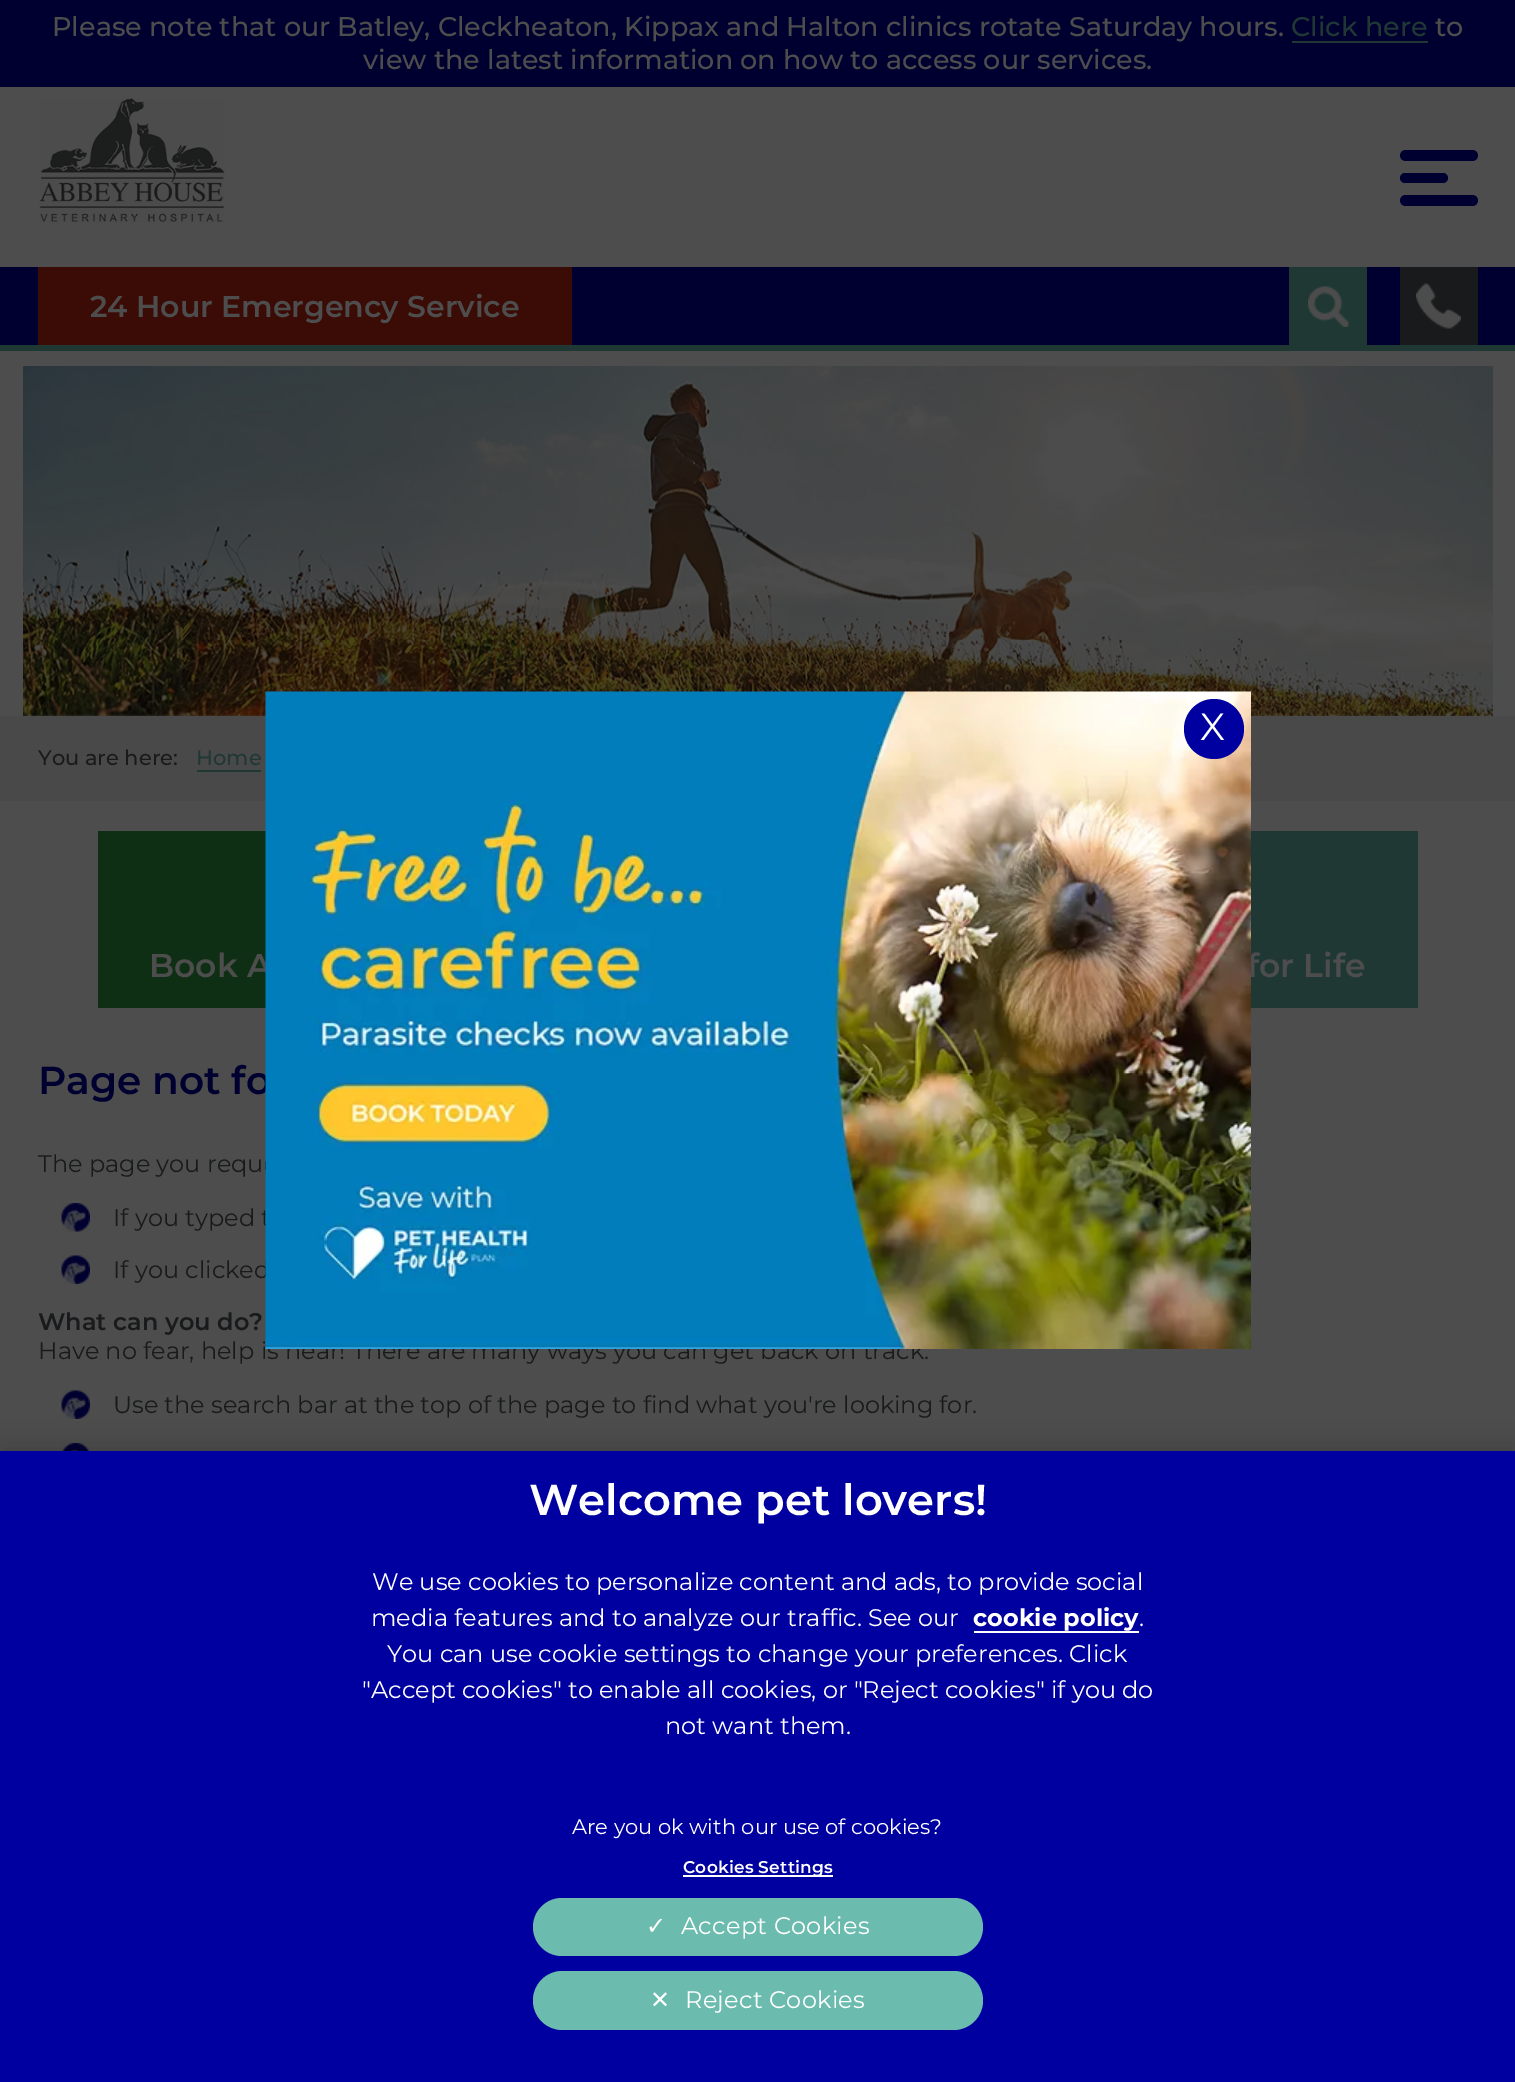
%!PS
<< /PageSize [1515 2082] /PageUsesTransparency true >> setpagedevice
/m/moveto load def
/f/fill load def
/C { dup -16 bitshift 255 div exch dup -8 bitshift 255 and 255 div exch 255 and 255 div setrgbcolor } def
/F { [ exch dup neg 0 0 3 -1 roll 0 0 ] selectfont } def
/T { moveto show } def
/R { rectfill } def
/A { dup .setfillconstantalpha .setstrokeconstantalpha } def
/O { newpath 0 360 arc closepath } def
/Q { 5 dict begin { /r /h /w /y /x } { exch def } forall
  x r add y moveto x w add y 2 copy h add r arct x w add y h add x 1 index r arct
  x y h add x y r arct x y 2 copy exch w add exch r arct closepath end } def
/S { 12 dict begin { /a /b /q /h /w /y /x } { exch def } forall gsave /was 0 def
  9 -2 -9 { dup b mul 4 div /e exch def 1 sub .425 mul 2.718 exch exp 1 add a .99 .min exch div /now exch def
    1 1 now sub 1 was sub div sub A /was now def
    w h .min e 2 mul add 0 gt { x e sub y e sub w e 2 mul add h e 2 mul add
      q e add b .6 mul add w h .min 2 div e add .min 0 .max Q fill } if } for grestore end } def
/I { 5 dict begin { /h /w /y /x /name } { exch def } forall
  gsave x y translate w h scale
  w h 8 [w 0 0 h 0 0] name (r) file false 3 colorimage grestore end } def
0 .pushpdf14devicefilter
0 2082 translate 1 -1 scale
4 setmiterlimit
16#4D4D4D C
0 0 1515 2082 R
16#000030 C
0 0 1515 87 R
/Montserrat-Medium 27 F
16#4D4D4D C
(Please note that our Batley, Cleckheaton, Kippax and Halton clinics rotate Saturday hours.) 52 36 T
16#203834 C
(Click here) 1291 36 T
1292 41 136 2 R
16#4D4D4D C
(to) 1435 36 T
(view the latest information on how to access our services.) 363 69 T
(1.rgb) 39 98 186 125 I
16#000030 C
1400 150 78 11 5.5 Q f
1400 173 48 10 5 Q f
1400 195 78 11 5.5 Q f
0 267 1515 78 R
16#203834 C
0 345 1515 6 R
16#3B0B06 C
38 267 534 78 R
/Montserrat-SemiBold 30 F
16#4D4D4D C
(24 Hour Emergency Service) 90 317 T
16#203834 C
1289 267 78 78 R
(2.rgb) 1308 286 41 41 I
16#191A1B C
1400 267 78 78 R
(3.rgb) 1416 283 45 46 I
(4.rgb) 23 366 1470 350 I
16#494949 C
0 716 1515 85 R
/Montserrat-Medium 21 F
16#191A1B C
(You are here:) 38 765 T
16#203834 C
(Home) 196 765 T
197 770 64 2 R
16#0E2F14 C
98 831 168 177 R
/Montserrat-SemiBold 33 F
16#4D4D4D C
(Book A) 149 977 T
16#203834 C
1251 831 167 177 R
16#4D4D4D C
(for Life) 1247 977 T
/Montserrat-SemiBold 39 F
16#000030 C
(Page not fo) 38 1094 T
/Montserrat-Regular 24 F
16#191A1B C
(The page you requ) 38 1172 T
(5.rgb) 61 1203 29 29 I
(If you typed t) 113 1226 T
(6.rgb) 61 1255 29 29 I
(If you clicked) 113 1278 T
/Montserrat-SemiBold 24 F
(What can you do?) 38 1330 T
/Montserrat-Regular 24 F
(Have no fear, help is near! There are many ways you can get back on track.) 38 1359 T
(6.rgb) 61 1390 29 29 I
(Use the search bar at the top of the page to find what you're looking for.) 113 1413 T
(7.rgb) 61 1443 29 8 I
(8.rgb) 265 691 986 658 I
16#0000A0 C
1214 729 30 O f
/Montserrat-Regular 38 F
16#FFFFFF C
(X) 1200 740 T
16#000000 C
0 1451 1515 631 0 13.5 .2 S
16#0000A0 C
0 1451 1515 631 R
/Montserrat-SemiBold 43.25 F
16#FFFFFF C
(Welcome pet lovers!) 529 1515 T
/Montserrat-Regular 24 F
(We use cookies to personalize content and ads, to provide social) 372 1590 T
(media features and to analyze our traffic. See our) 371 1626 T
/Montserrat-Bold 24 F
(cookie policy) 973 1626 T
974 1631 165 2 R
/Montserrat-Regular 24 F
(.) 1139 1626 T
(You can use cookie settings to change your preferences. Click) 387 1662 T
("Accept cookies" to enable all cookies, or "Reject cookies" if you do) 362 1698 T
(not want them.) 665 1734 T
/Montserrat-Regular 21 F
(Are you ok with our use of cookies?) 572 1834 T
683 1875 150 2 R
/Montserrat-SemiBold 17 F
683 1873 m .2 0 (Cookies Settings) ashow
16#6BBBAE C
533 1898 450 58 29 Q f
/DejaVuSans-Regular 24 F
16#FFFFFF C
646 1934 m .25 0 (✓) ashow
/Montserrat-Regular 24 F
681 1934 m .25 0 (Accept Cookies) ashow
16#6BBBAE C
533 1971 450 59 29.5 Q f
/DejaVuSans-Regular 24 F
16#FFFFFF C
650 2008 m .25 0 (✕) ashow
/Montserrat-Regular 24 F
685 2008 m .25 0 (Reject Cookies) ashow
.poppdf14devicefilter showpage
